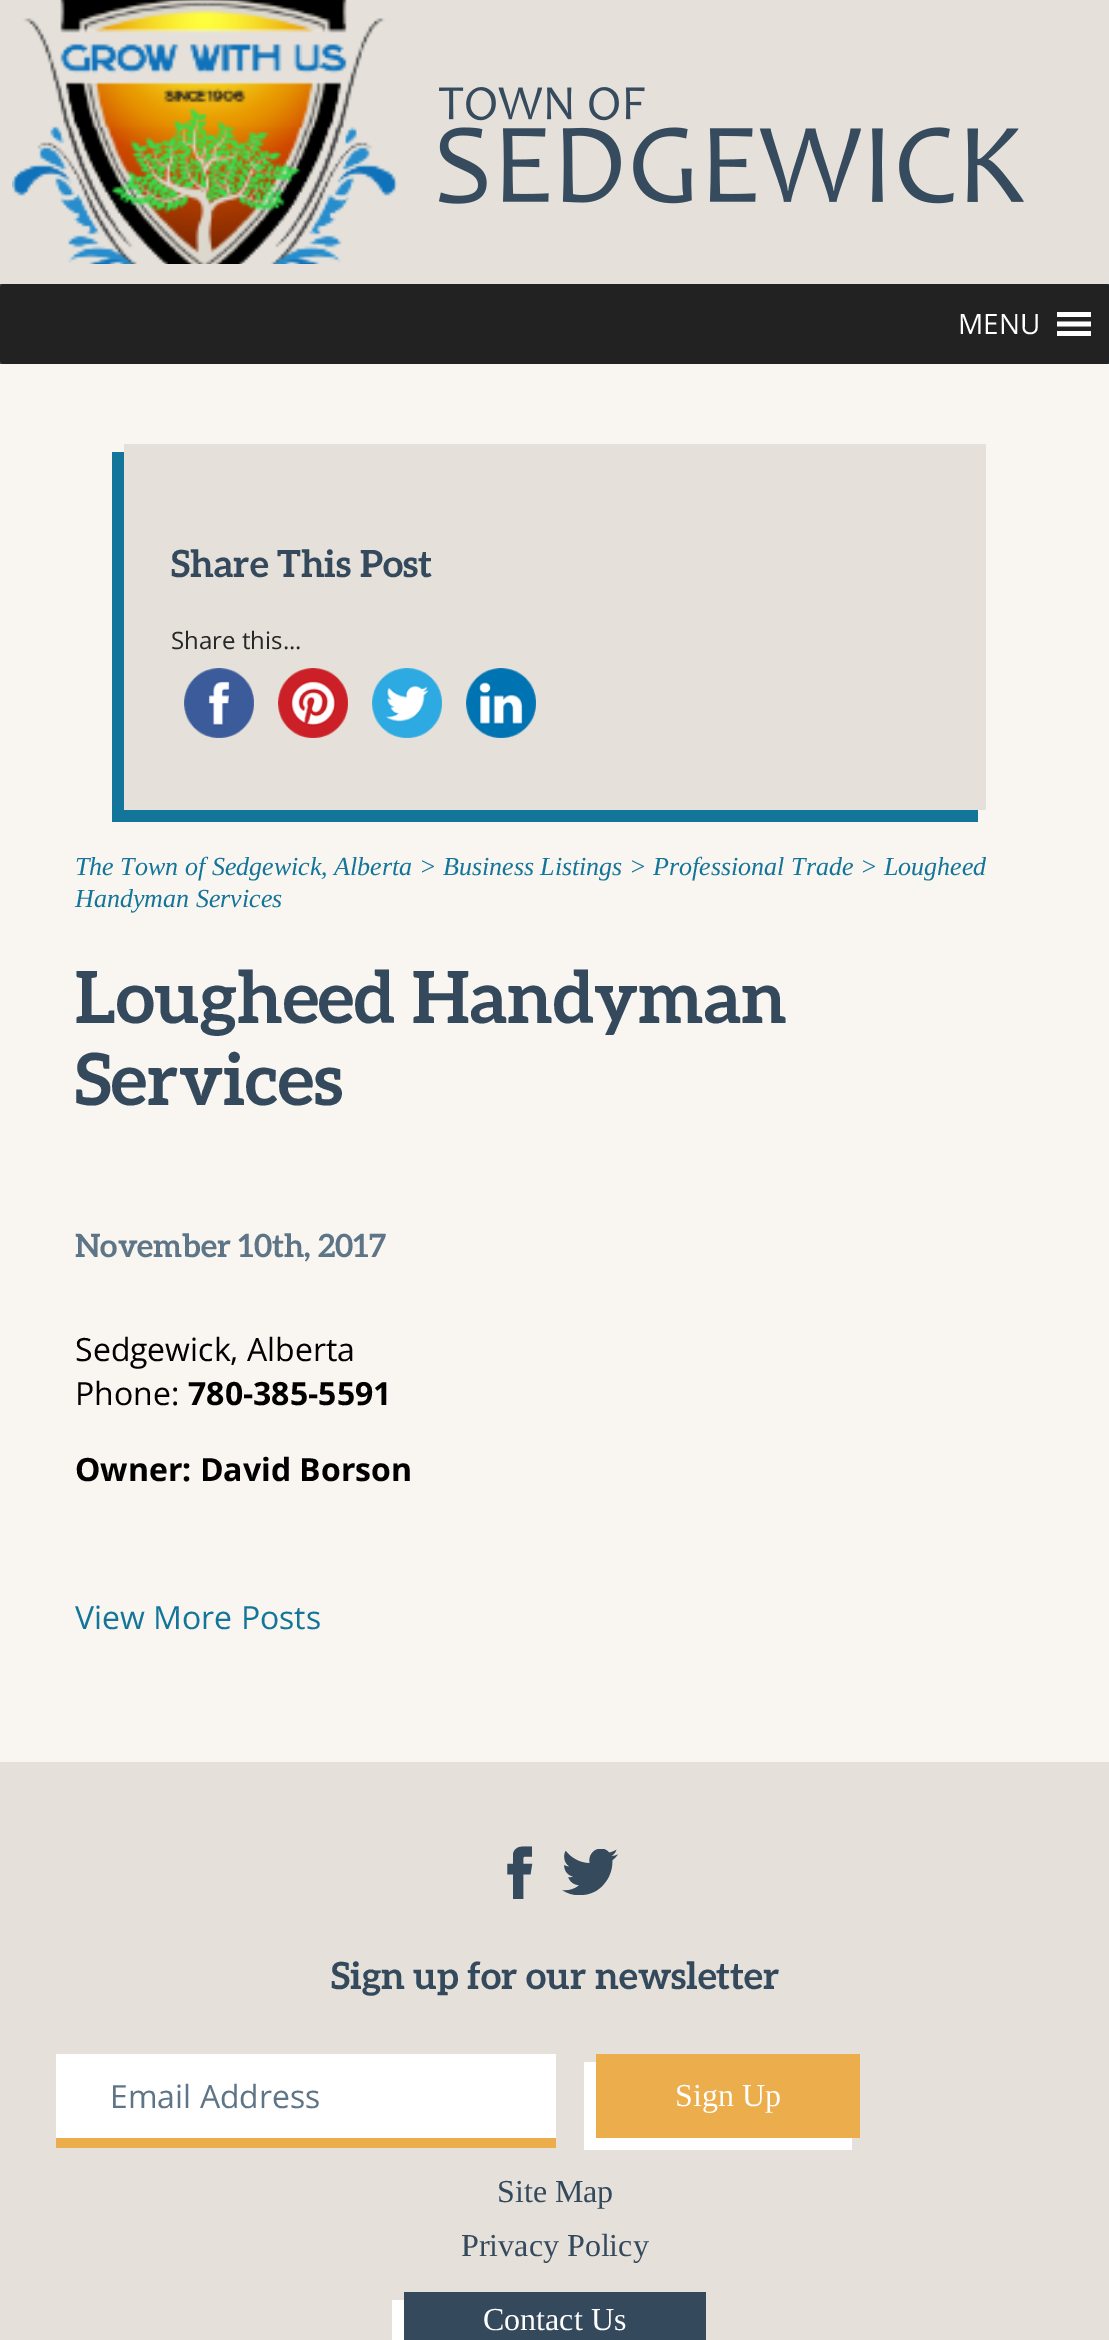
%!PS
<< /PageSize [1109 2340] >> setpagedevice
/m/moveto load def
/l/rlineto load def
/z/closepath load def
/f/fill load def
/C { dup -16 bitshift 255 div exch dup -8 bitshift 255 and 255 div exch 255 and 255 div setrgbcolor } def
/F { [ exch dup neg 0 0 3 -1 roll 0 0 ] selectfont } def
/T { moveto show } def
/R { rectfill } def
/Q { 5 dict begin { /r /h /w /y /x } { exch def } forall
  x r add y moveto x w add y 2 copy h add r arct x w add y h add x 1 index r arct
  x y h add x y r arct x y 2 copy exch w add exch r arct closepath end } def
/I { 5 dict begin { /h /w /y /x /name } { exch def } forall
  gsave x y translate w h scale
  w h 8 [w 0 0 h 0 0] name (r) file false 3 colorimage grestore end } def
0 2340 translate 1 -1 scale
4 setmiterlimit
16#F9F5F0 C
0 0 1109 2340 R
16#E5E1DA C
0 0 1109 284 R
(1.rgb) 12 0 386 264 I
(2.rgb) 439 87 585 117 I
16#364A5C C
0 284 1109 80 R
16#222222 C
0 284 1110 80 4 Q f
/OpenSans-Regular 28 F
16#FFFFFF C
(MENU) 958 334 T
1057 336 m 34 0 l 0 -5 l -34 0 l z 1057 312 m 0 5 l 34 0 l 0 -5 l z 1057 326.5 m 34 0 l 0 -5 l -34 0 l z f
16#127599 C
112 452 m 0 370 l 866 0 l 0 -12 l -854 0 l 0 -358 l z f
16#E5E1DA C
124 444 862 366 R
/Aleo-Bold 37.5 F
16#35495D C
(Share This Post) 171 577 T
/OpenSans-Regular 24 F
16#272727 C
(Share this...) 171 649 T
(3.rgb) 184 668 70 70 I
(4.rgb) 278 668 70 70 I
(5.rgb) 372 668 70 70 I
(6.rgb) 466 668 70 70 I
/LiberationSerif-Italic 26 F
16#127599 C
(The Town of Sedgewick, Alberta > Business Listings > Professional Trade > Lougheed) 75 875 T
(Handyman Services) 75 907 T
/Aleo-Bold 72 F
16#35495D C
(Lougheed Handyman) 75 1023 T
(Services) 75 1105 T
/Aleo-Bold 32 F
16#5E7588 C
(November 10th, 2017) 75 1257 T
/OpenSans-Regular 32 F
16#000000 C
(Sedgewick, Alberta) 75 1361 T
(Phone:) 75 1405 T
/OpenSans-Bold 32 F
(780-385-5591) 188 1405 T
(Owner: David Borson) 75 1481 T
/OpenSans-Regular 32 F
16#127599 C
(View More Posts) 75 1629 T
16#E5E1DA C
0 1762 1109 578 R
(7.rgb) 507 1846 26 53 I
(8.rgb) 562 1849 56 46 I
/Aleo-Bold 37.5 F
16#35495D C
(Sign up for our newsletter) 331 1989 T
16#FFFFFF C
56 2054 500 84 R
16#ECAE4C C
56 2138 500 10 R
/OpenSans-Regular 32 F
16#5E7588 C
(Email Address) 110 2108 T
16#FFFFFF C
584 2062 m 0 88 l 268 0 l 0 -12 l -256 0 l 0 -76 l z f
16#ECAE4C C
596 2054 264 84 R
/LiberationSerif-Regular 32 F
16#FFFFFF C
(Sign Up) 675 2106 T
16#35495D C
(Site Map) 497 2202 T
(Privacy Policy) 461 2256 T
404 2292 302 48 R
16#FFFFFF C
(Contact Us) 483 2330 T
392 2300 m 0 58 l 306 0 l 0 -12 l -294 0 l 0 -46 l z f
showpage
